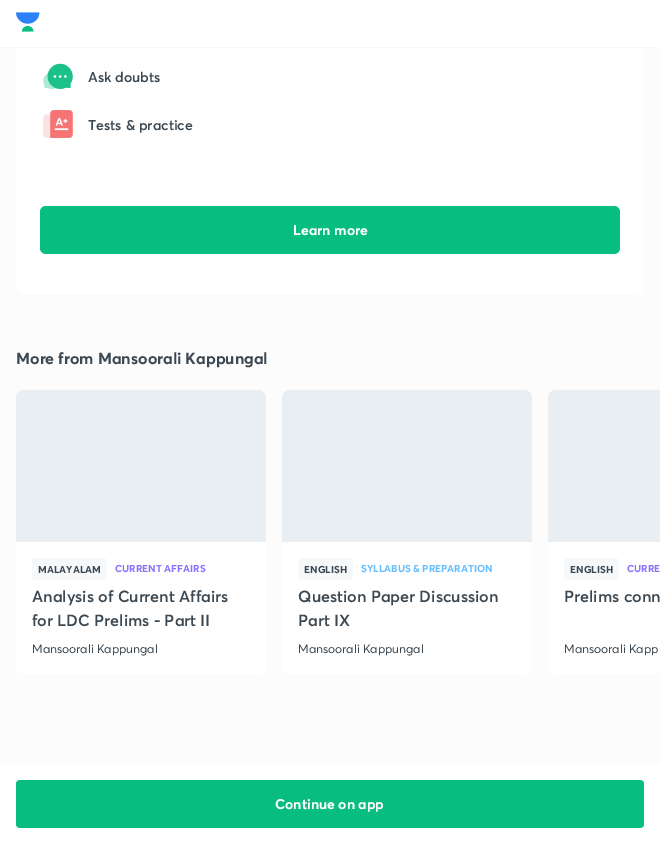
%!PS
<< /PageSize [660 844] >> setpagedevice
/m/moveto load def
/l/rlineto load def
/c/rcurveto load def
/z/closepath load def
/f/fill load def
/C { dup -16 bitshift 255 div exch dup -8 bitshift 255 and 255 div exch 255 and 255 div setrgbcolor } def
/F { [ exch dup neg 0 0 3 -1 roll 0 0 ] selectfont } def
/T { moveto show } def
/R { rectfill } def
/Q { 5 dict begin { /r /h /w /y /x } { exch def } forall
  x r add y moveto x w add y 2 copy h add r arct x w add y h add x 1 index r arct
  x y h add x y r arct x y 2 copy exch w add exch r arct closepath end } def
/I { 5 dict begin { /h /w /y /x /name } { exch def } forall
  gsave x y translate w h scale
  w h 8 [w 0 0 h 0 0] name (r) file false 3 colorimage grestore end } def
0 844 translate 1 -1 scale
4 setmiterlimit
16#FCFCFC C
0 0 660 844 R
16#FFFFFF C
16 -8 628 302 8 Q f
0 0 660 47 R
16#F6F8FA C
0 47 660 1 R
(1.rgb) 16 12 24 20 I
(2.rgb) 43 63 30 26 I
/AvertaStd-SemiBold 14 F
16#3C4852 C
(Ask doubts) 88 82 T
(3.rgb) 43 110 30 28 I
(Tests & practice) 88 130 T
16#08BD80 C
40 206 580 48 6 Q f
/AvertaStd-Bold 14 F
16#FFFFFF C
(Learn more) 293 235 T
/AvertaStd-Bold 16 F
16#3C4852 C
(More from Mansoorali Kappungal) 16 364 T
16#FFFFFF C
16 390 250 284 8 Q f
16#E9EEF2 C
24 390 m 234 0 l 4.5 0 8 3.5 8 8 c 0 144 l -250 0 l 0 -144 l 0 -4.5 3.5 -8 8 -8 c z f
16#F6F8FA C
32 558 75 22 4 Q f
/AvertaStd-Bold 10 F
16#3C4852 C
(MALAYALAM) 38 573 T
16#8873FF C
(CURRENT AFFAIRS) 115 572 T
/AvertaStd-SemiBold 16 F
16#3C4852 C
(Analysis of Current Affairs) 32 602 T
(for LDC Prelims - Part II) 32 626 T
/AvertaStd-Regular 12 F
(Mansoorali Kappungal) 32 653 T
16#FFFFFF C
282 390 250 284 8 Q f
16#E9EEF2 C
290 390 m 234 0 l 4.5 0 8 3.5 8 8 c 0 144 l -250 0 l 0 -144 l 0 -4.5 3.5 -8 8 -8 c z f
16#F6F8FA C
298 558 55 22 4 Q f
/AvertaStd-Bold 10 F
16#3C4852 C
(ENGLISH) 304 573 T
16#64BEFF C
(SYLLABUS & PREPARATION) 361 572 T
/AvertaStd-SemiBold 16 F
16#3C4852 C
(Question Paper Discussion) 298 602 T
(Part IX) 298 626 T
/AvertaStd-Regular 12 F
(Mansoorali Kappungal) 298 653 T
16#FFFFFF C
556 390 m 104 0 l 0 284 l -104 0 l -4.5 0 -8 -3.5 -8 -8 c 0 -268 l 0 -4.5 3.5 -8 8 -8 c z f
16#E9EEF2 C
556 390 m 104 0 l 0 152 l -112 0 l 0 -144 l 0 -4.5 3.5 -8 8 -8 c z f
16#F6F8FA C
564 558 55 22 4 Q f
/AvertaStd-Bold 10 F
16#3C4852 C
(ENGLISH) 570 573 T
16#8873FF C
(CURRE) 627 572 T
/AvertaStd-SemiBold 16 F
16#3C4852 C
(Prelims conn) 564 602 T
/AvertaStd-Regular 12 F
(Mansoorali Kapp) 564 653 T
16#FFFFFF C
0 764 660 80 R
16#08BD80 C
16 780 628 48 4 Q f
/AvertaStd-Bold 14 F
16#FFFFFF C
(Continue on app) 275 809 T
showpage
